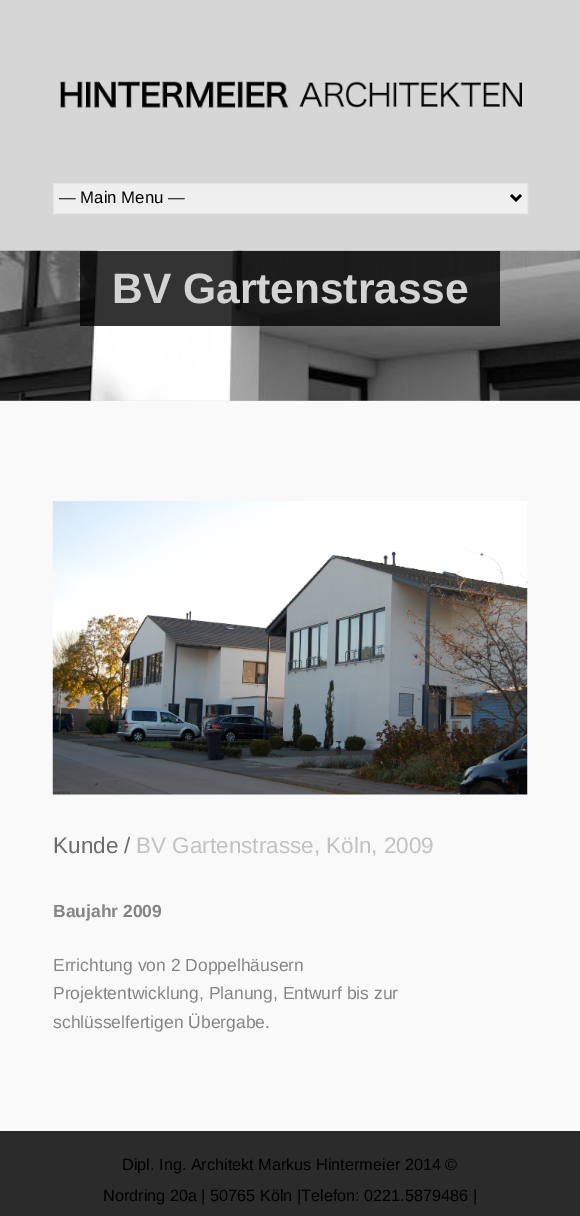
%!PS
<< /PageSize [580 1216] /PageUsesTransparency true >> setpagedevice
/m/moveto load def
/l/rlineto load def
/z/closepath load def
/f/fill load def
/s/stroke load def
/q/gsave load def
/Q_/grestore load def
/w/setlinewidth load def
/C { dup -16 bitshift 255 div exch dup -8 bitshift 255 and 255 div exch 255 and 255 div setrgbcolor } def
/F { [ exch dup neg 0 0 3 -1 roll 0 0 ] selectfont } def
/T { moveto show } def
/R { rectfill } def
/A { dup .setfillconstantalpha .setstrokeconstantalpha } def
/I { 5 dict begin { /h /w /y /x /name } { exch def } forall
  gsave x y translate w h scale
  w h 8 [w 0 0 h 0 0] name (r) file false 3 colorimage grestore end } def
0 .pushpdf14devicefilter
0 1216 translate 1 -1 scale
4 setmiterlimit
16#F9F9F9 C
0 0 580 1216 R
16#D6D6D6 C
0 0 580 401 R
(1.rgb) 60 81 463 27 I
16#EFEFEF C
53.5 183.5 m 474 0 l 0 30 l -474 0 l z q f Q_
16#E6E6E6 C
s
16#000000 C
2.5 w
511 195 m 5 5 l 5 -5 l s
/LiberationSans-Regular 16.75 F
(— Main Menu —) 59 203 T
(2.rgb) 0 250 580 151 I
0.8 A
80 251 420 75 R
/LiberationSans-Bold 42.5 F
1 A
16#D3D3D3 C
(BV Gartenstrasse) 112 303 T
(3.rgb) 52 501 476 294 I
/LiberationSans-Regular 22.5 F
16#6B6B6B C
(Kunde /) 53 853 T
16#C2C2C2 C
(BV Gartenstrasse, Köln, 2009) 136 853 T
/LiberationSans-Bold 17.5 F
16#848484 C
(Baujahr 2009) 53 917 T
/LiberationSans-Regular 17.5 F
(Errichtung von 2 Doppelhäusern) 53 971 T
(Projektentwicklung, Planung, Entwurf bis zur) 53 999 T
(schlüsselfertigen Übergabe.) 53 1028 T
16#2B2B2B C
0 1131 580 85 R
/LiberationSans-Regular 16.25 F
16#000000 C
(Dipl. Ing. Architekt Markus Hintermeier 2014 ©) 122 1170 T
(Nordring 20a | 50765 Köln |Telefon: 0221.5879486 |) 103 1201 T
.poppdf14devicefilter showpage
